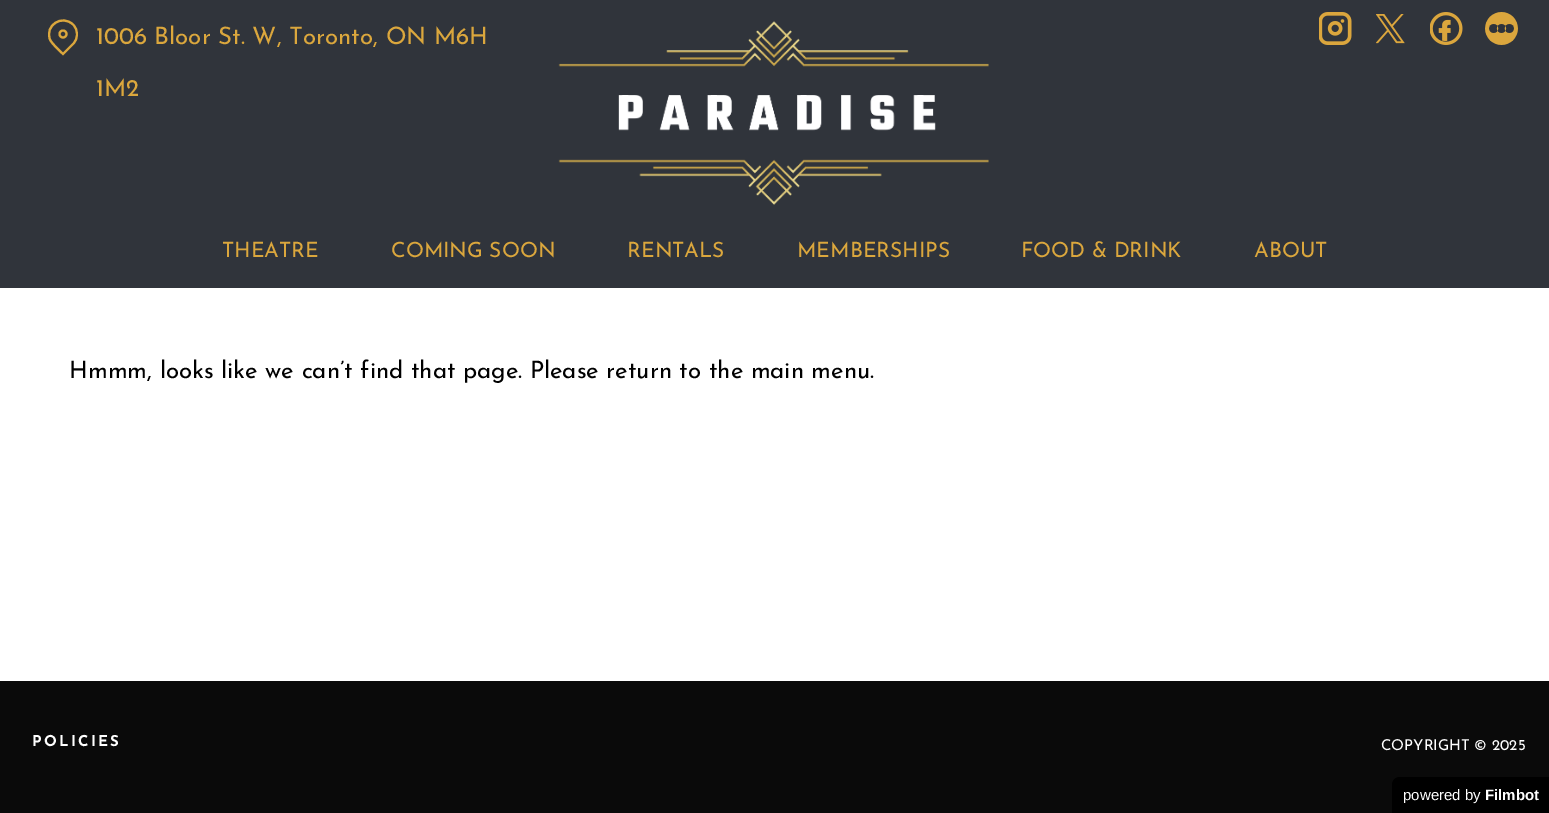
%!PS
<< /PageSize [1549 813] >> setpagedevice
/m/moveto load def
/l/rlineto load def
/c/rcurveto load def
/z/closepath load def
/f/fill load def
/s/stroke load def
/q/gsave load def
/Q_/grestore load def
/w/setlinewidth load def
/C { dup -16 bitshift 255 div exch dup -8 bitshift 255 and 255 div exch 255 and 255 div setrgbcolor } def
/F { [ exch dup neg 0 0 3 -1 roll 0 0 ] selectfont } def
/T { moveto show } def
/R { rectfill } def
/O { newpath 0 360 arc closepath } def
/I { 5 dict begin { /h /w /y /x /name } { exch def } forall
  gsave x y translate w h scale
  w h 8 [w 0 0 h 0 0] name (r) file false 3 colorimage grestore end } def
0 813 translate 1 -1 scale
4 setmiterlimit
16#FFFFFF C
0 0 1549 813 R
16#30343B C
0 0 1549 288 R
q
48 12 30 51 rectclip
16#DBA73D C
2.1 w
73 24.5 m 5.5 5.5 5.5 14 0 19.5 c -10 10 l -3.5 -3.5 -11 -10 -13 -14.5 c -5.5 -14 12 -25.5 23 -15 c z s
Q_
16#DBA73D C
2.1 w
63 34 3.5 O s
/JosefinSans-Regular 24 F
(1006 Bloor St. W, Toronto, ON M6H) 96 44 T
(1M2) 96 96 T
(1.rgb) 558 21 431 184 I
(2.rgb) 1319 12 33 33 I
(3.rgb) 1376 14 29 30 I
(4.rgb) 1430 12 33 33 I
(5.rgb) 1485 12 33 33 I
/JosefinSans-Regular 21 F
(THEATRE) 222 257 T
(COMING SOON) 391 257 T
(RENTALS) 627 257 T
(MEMBERSHIPS) 797 257 T
(FOOD & DRINK) 1021 257 T
(ABOUT) 1254 257 T
/JosefinSans-Regular 24 F
16#000000 C
(Hmmm, looks like we can’t find that page. Please return to the main menu.) 69 378 T
16#0A0A0A C
0 681 1549 132 R
/JosefinSans-Bold 15 F
16#FFFFFF C
32 746 m 2.25 0 (POLICIES) ashow
/JosefinSans-Regular 15 F
(COPYRIGHT © 2025) 1381 750 T
16#000000 C
1400 777 m 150 0 l 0 36 l -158 0 l 0 -28 l 0 -4.5 3.5 -8 8 -8 c z f
/LiberationSans-Regular 15 F
16#FFFFFF C
(powered by) 1403 800 T
/LiberationSans-Bold 15 F
(Filmbot) 1485 800 T
showpage
